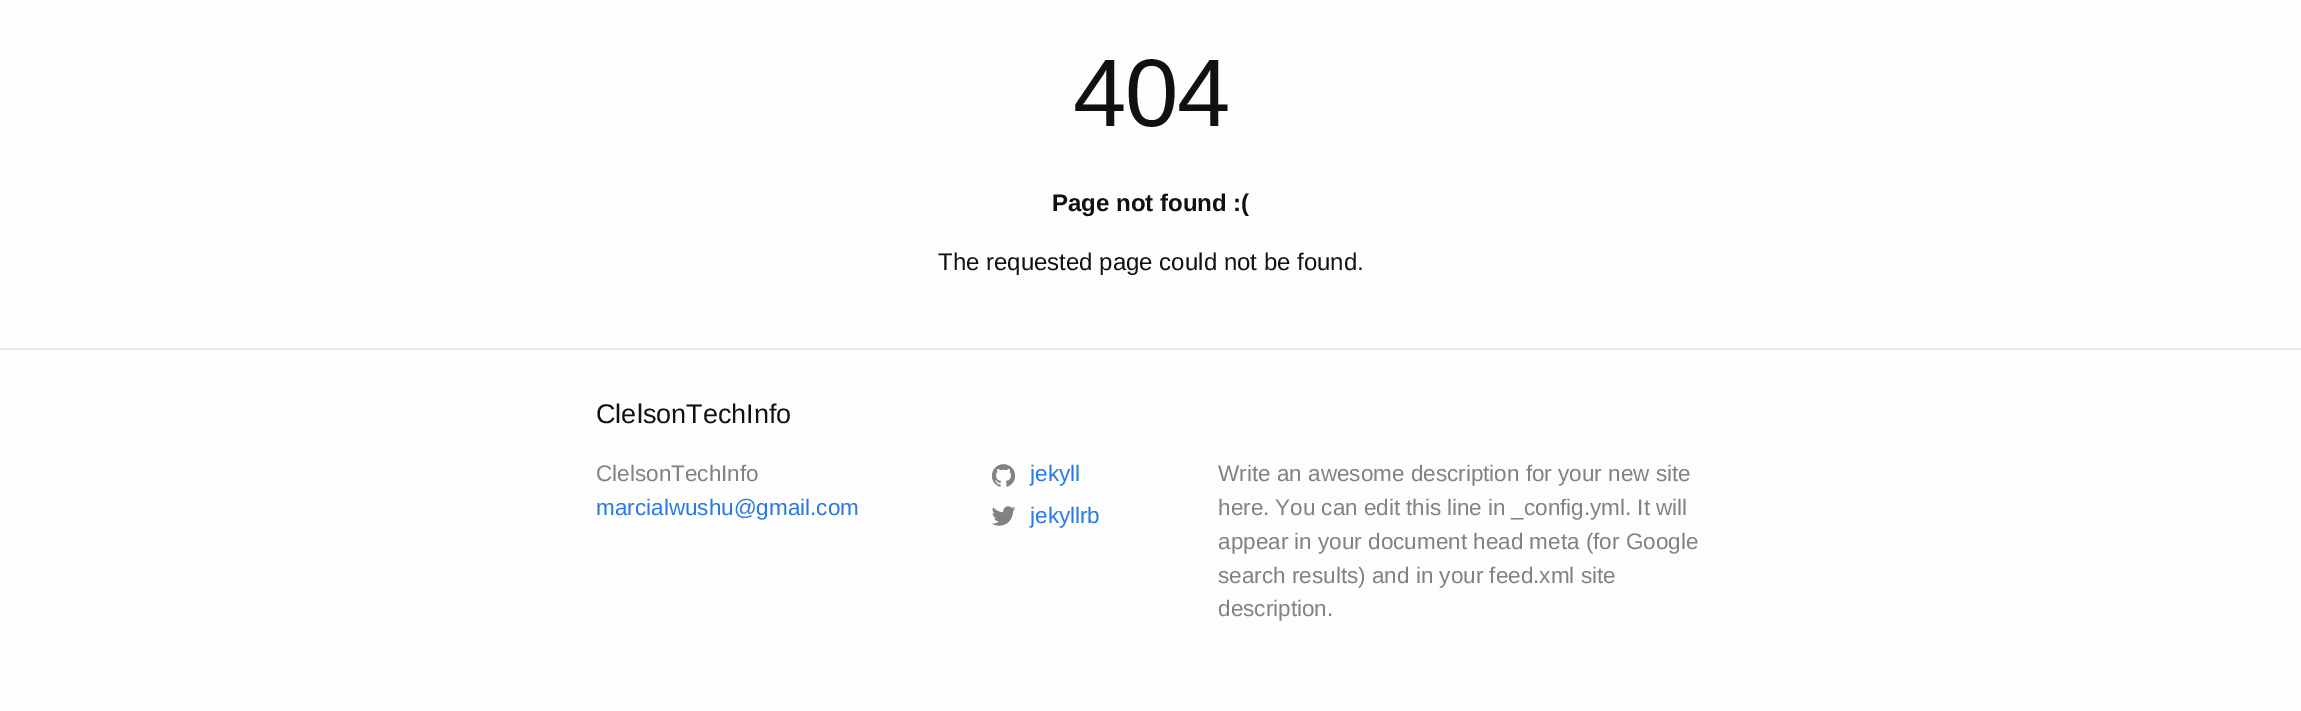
%!PS
<< /PageSize [2301 711] >> setpagedevice
/m/moveto load def
/C { dup -16 bitshift 255 div exch dup -8 bitshift 255 and 255 div exch 255 and 255 div setrgbcolor } def
/F { [ exch dup neg 0 0 3 -1 roll 0 0 ] selectfont } def
/T { moveto show } def
/R { rectfill } def
/I { 5 dict begin { /h /w /y /x /name } { exch def } forall
  gsave x y translate w h scale
  w h 8 [w 0 0 h 0 0] name (r) file false 3 colorimage grestore end } def
0 711 translate 1 -1 scale
4 setmiterlimit
16#FDFDFD C
0 0 2301 711 R
/LiberationSans-Regular 96 F
16#111111 C
1073 126 m -1.5 0 (404) ashow
/LiberationSans-Bold 24 F
(Page not found :\() 1052 211 T
/LiberationSans-Regular 24 F
(The requested page could not be found.) 938 270 T
16#E8E8E8 C
0 348 2301 2 R
/LiberationSans-Regular 27 F
16#111111 C
(ClelsonTechInfo) 596 423 T
/LiberationSans-Regular 22.5 F
16#828282 C
(ClelsonTechInfo) 596 481 T
16#2A7AE2 C
(marcialwushu@gmail.com) 596 515 T
(1.rgb) 992 464 24 23 I
(jekyll) 1030 481 T
(2.rgb) 992 506 24 20 I
(jekyllrb) 1030 523 T
16#828282 C
(Write an awesome description for your new site) 1218 481 T
1218 515 m -.25 0 32 (here. You can edit this line in _config.yml. It will) widthshow
(appear in your document head meta \(for Google) 1218 549 T
(search results\) and in your feed.xml site) 1218 583 T
(description.) 1218 616 T
showpage
